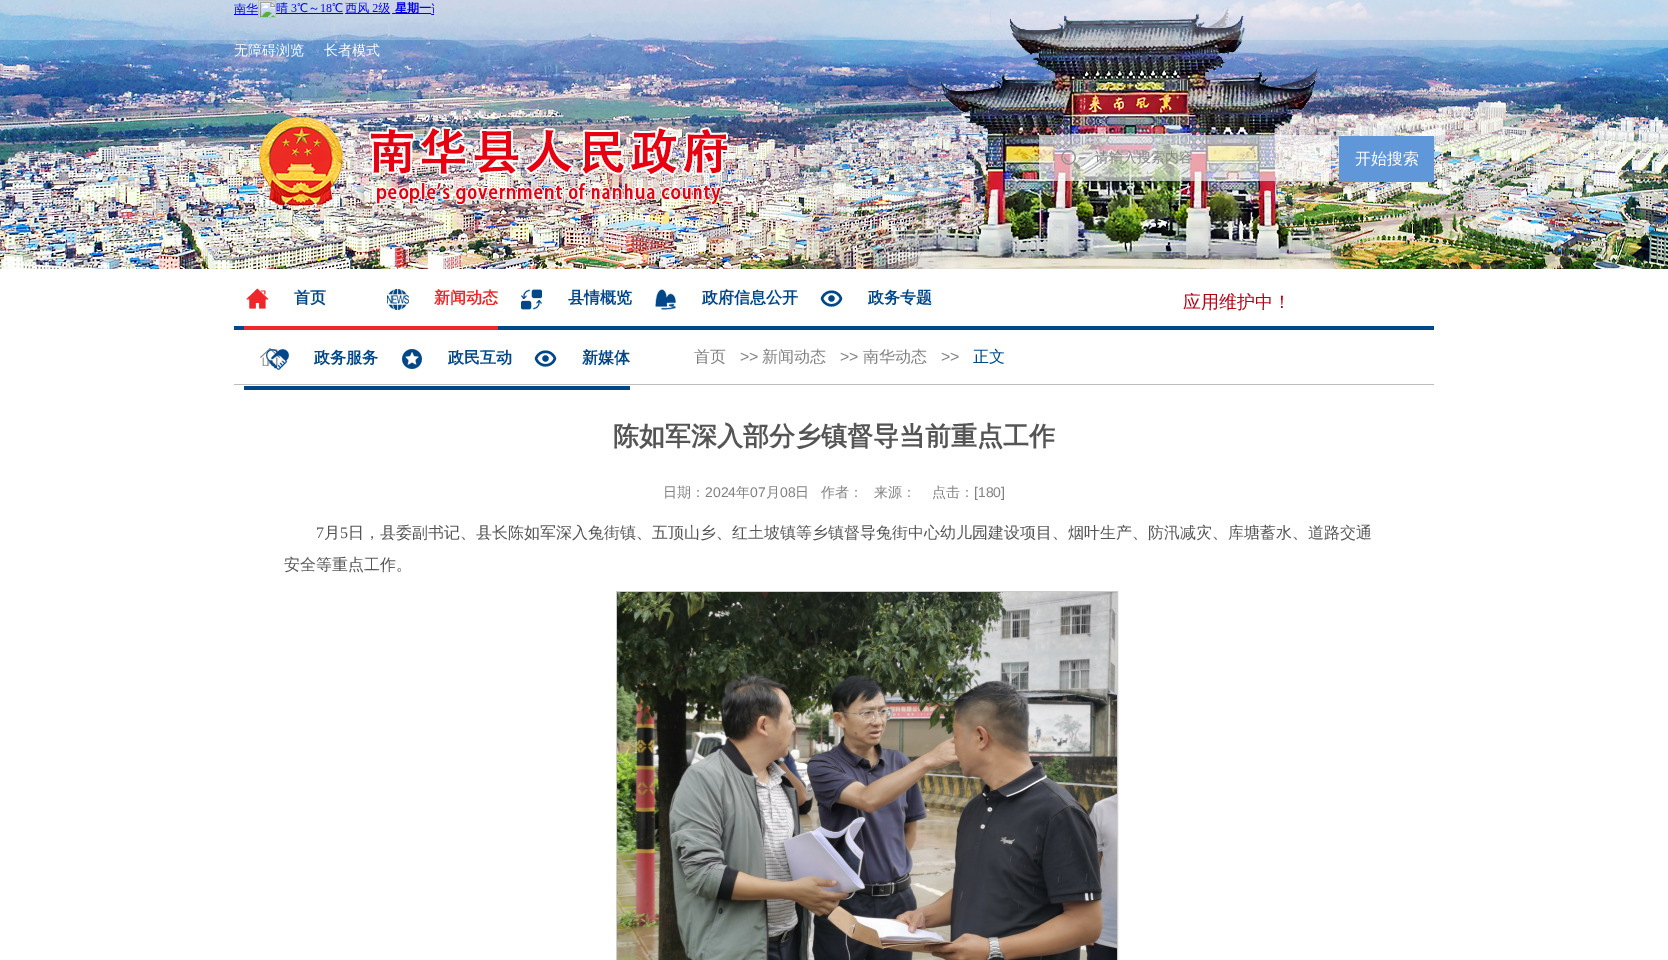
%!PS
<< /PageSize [1668 960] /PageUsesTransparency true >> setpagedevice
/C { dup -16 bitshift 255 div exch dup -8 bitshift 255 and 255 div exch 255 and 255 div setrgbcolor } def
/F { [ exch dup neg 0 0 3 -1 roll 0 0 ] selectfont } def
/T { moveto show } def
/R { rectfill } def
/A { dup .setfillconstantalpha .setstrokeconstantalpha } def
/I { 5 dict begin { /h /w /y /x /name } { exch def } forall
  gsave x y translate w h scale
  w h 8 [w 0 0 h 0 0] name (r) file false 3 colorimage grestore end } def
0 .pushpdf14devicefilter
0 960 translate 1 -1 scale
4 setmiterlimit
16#FFFFFF C
0 0 1668 960 R
(1.rgb) 0 0 1668 269 I
0.22 A
0 0 1668 40 R
1 A
(2.rgb) 234 0 200 18 I
/WenQuanYiZenHei-Medium 14 F
(无障碍浏览) 234 55 T
(长者模式) 324 55 T
(3.rgb) 250 116 101 95 I
(4.rgb) 355 126 375 85 I
0.6 A
1039 135 292 46 R
1 A
(5.rgb) 1061 150 19 19 I
16#868686 C
(请输入搜索内容) 1095 162 T
16#6097D8 C
1339 136 95 46 R
/WenQuanYiZenHei-Medium 16 F
16#FFFFFF C
(开始搜索) 1355 164 T
/WenQuanYiZenHei-Medium 18 F
16#B30216 C
(应用维护中！) 1183 308 T
16#004789 C
234 326 1200 4 R
(6.rgb) 246 288 23 21 I
16#EE272A C
244 326 254 4 R
/WenQuanYiZenHei-Bold 16 F
16#004789 C
(首页) 294 303 T
(7.rgb) 387 289 22 21 I
16#EE272A C
(新闻动态) 434 303 T
(8.rgb) 521 289 21 21 I
16#004789 C
(县情概览) 568 303 T
(9.rgb) 655 289 21 21 I
(政府信息公开) 702 303 T
(10.rgb) 820 290 23 17 I
(政务专题) 868 303 T
(13.rgb) 260 348 20 18 I
(11.rgb) 266 349 23 21 I
244 386 386 4 R
(政务服务) 314 363 T
(12.rgb) 402 349 20 20 I
(政民互动) 448 363 T
(10.rgb) 534 350 23 17 I
(新媒体) 582 363 T
16#BCBCBC C
234 384 1200 1 R
/WenQuanYiZenHei-Medium 16 F
16#808080 C
(首页) 694 362 T
/LiberationSans-Regular 16 F
(>>) 740 362 T
/WenQuanYiZenHei-Medium 16 F
(新闻动态) 762 362 T
/LiberationSans-Regular 16 F
(>>) 840 362 T
/WenQuanYiZenHei-Medium 16 F
(南华动态) 863 362 T
/LiberationSans-Regular 16 F
(>>) 941 362 T
/WenQuanYiZenHei-Medium 16 F
16#004789 C
(正文) 973 362 T
/WenQuanYiZenHei-Bold 26 F
16#555555 C
(陈如军深入部分乡镇督导当前重点工作) 613 445 T
/WenQuanYiZenHei-Medium 14 F
16#808080 C
(日期：) 663 497 T
/LiberationSans-Regular 14 F
(2024) 705 497 T
/WenQuanYiZenHei-Medium 14 F
(年) 736 497 T
/LiberationSans-Regular 14 F
(07) 750 497 T
/WenQuanYiZenHei-Medium 14 F
(月) 766 497 T
/LiberationSans-Regular 14 F
(08) 780 497 T
/WenQuanYiZenHei-Medium 14 F
(日) 795 497 T
(作者：) 821 497 T
(来源：) 874 497 T
(点击：) 932 497 T
/LiberationSans-Regular 14 F
([180]) 974 497 T
/LiberationSerif-Regular 16 F
16#555555 C
(7) 316 538 T
/WenQuanYiZenHei-Medium 16 F
(月) 324 538 T
/LiberationSerif-Regular 16 F
(5) 340 538 T
/WenQuanYiZenHei-Medium 16 F
(日，县委副书记、县长陈如军深入兔街镇、五顶山乡、红土坡镇等乡镇督导兔街中心幼儿园建设项目、烟叶生产、防汛减灾、库塘蓄水、道路交通) 348 538 T
(安全等重点工作。) 284 570 T
16#CCCCCC C
616.5 591.5 501 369 rectstroke
(14.rgb) 617 592 500 368 I
.poppdf14devicefilter showpage
